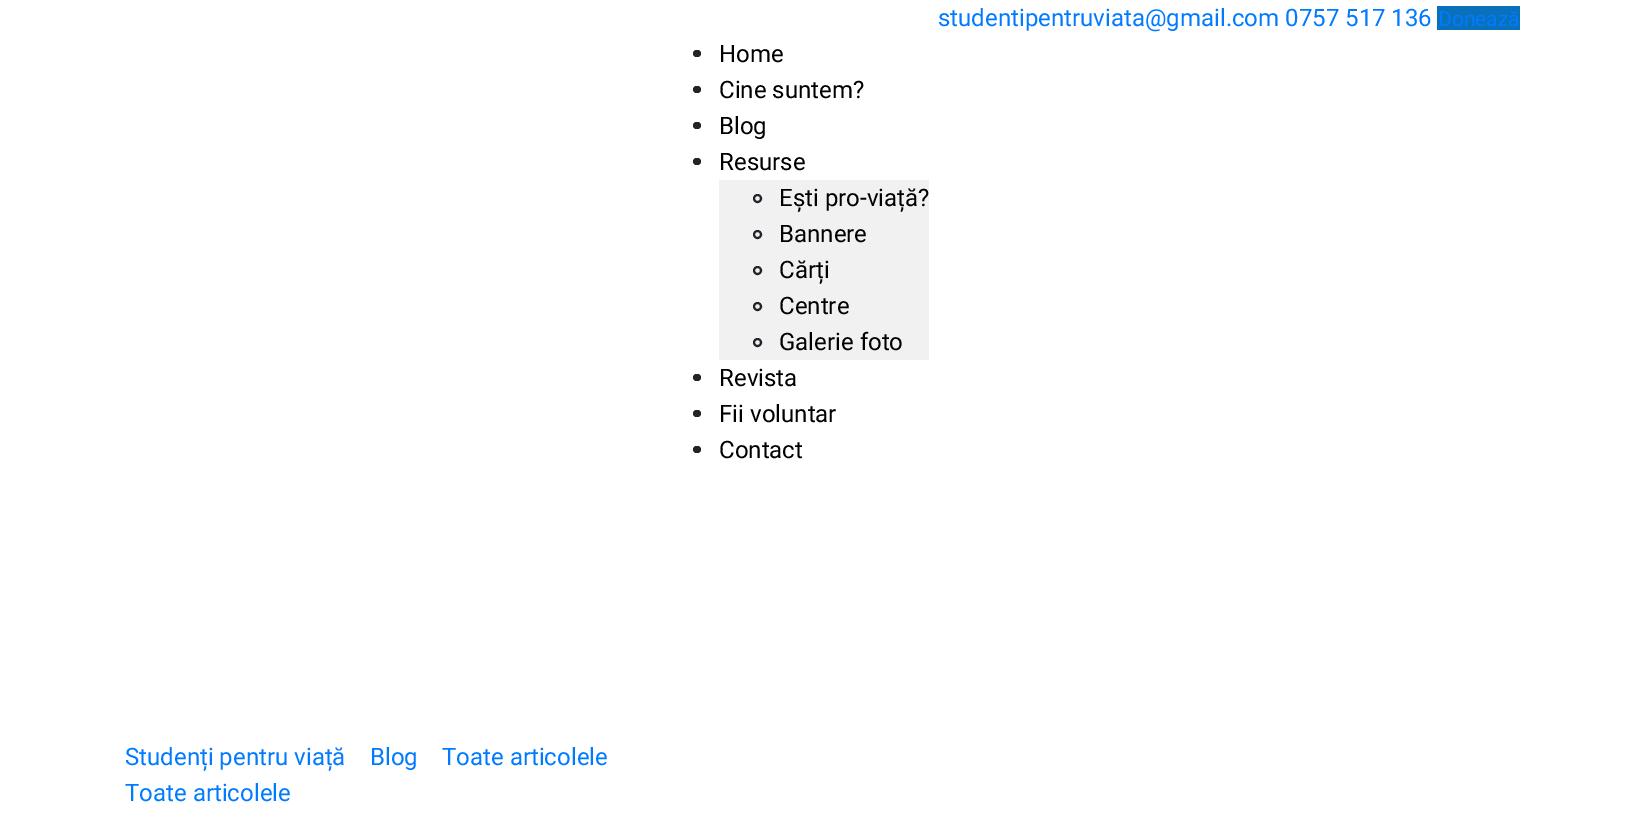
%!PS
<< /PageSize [1644 830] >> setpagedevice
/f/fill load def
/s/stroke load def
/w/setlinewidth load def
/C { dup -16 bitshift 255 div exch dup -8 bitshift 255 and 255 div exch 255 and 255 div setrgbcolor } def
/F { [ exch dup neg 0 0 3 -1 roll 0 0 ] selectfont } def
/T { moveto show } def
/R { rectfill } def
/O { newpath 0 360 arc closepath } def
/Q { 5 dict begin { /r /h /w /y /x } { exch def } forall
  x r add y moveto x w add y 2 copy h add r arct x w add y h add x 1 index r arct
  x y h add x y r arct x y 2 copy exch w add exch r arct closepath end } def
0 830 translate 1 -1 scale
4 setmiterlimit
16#FFFFFF C
0 0 1644 830 R
/Roboto-Regular 24 F
16#007BFF C
(studentipentruviata@gmail.com 0757 517 136) 938 26 T
16#0A70B9 C
1437 6 83 24 R
/Roboto-Regular 21 F
16#007BFF C
(Donează) 1438 26 T
16#212529 C
693 50 8 7 3.5 Q f
/Roboto-Regular 24 F
16#000000 C
(Home) 719 62 T
16#212529 C
693 86 8 7 3.5 Q f
16#000000 C
(Cine suntem?) 719 98 T
16#212529 C
693 122 8 7 3.5 Q f
16#000000 C
(Blog) 719 134 T
16#212529 C
693 158 8 7 3.5 Q f
16#000000 C
(Resurse) 719 170 T
16#F1F1F1 C
719 180 210 180 R
16#212529 C
2 w
757.5 198.5 3.5 O s
16#000000 C
(Ești pro-viață?) 779 206 T
16#212529 C
757.5 234.5 3.5 O s
16#000000 C
(Bannere) 779 242 T
16#212529 C
757.5 270.5 3.5 O s
16#000000 C
(Cărți) 779 278 T
16#212529 C
757.5 306.5 3.5 O s
16#000000 C
(Centre) 779 314 T
16#212529 C
757.5 342.5 3.5 O s
16#000000 C
(Galerie foto) 779 350 T
16#212529 C
693 374 8 7 3.5 Q f
16#000000 C
(Revista) 719 386 T
16#212529 C
693 410 8 7 3.5 Q f
16#000000 C
(Fii voluntar) 719 422 T
16#212529 C
693 446 8 7 3.5 Q f
16#000000 C
(Contact) 719 458 T
16#007BFF C
(Studenți pentru viață) 125 765 T
(Blog) 370 765 T
(Toate articolele) 442 765 T
(Toate articolele) 125 801 T
showpage
